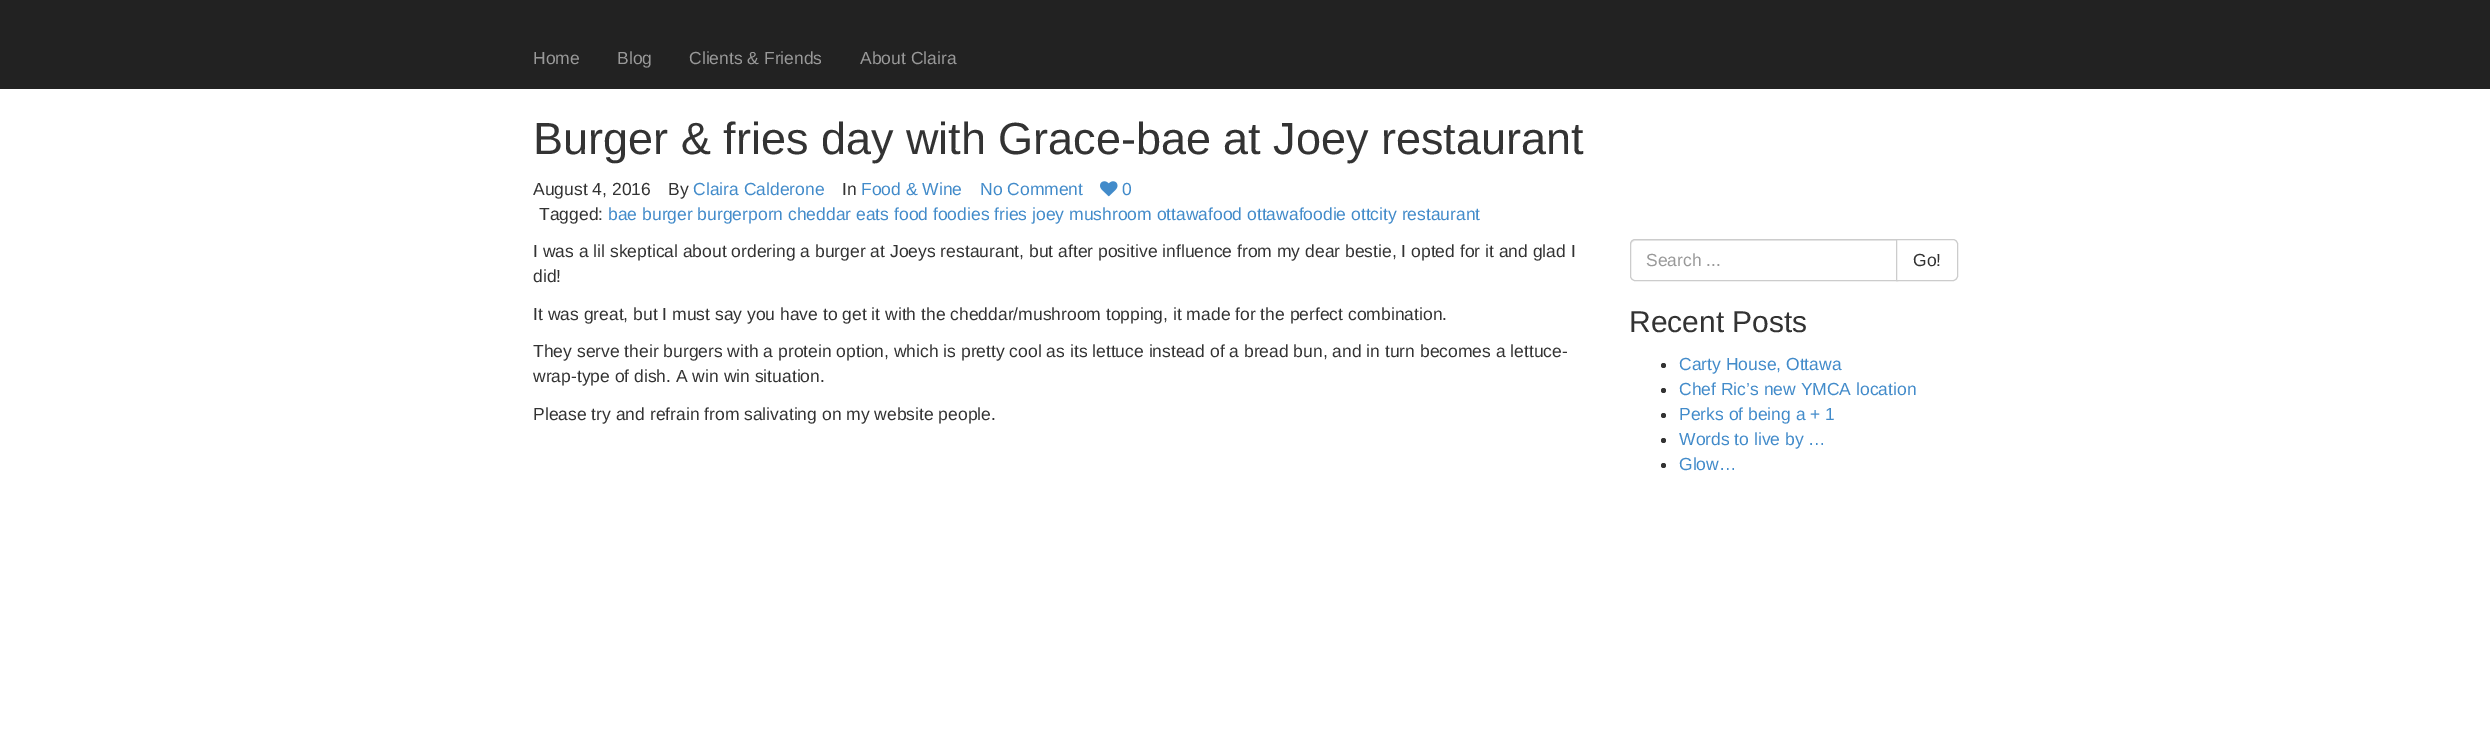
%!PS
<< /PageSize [2490 754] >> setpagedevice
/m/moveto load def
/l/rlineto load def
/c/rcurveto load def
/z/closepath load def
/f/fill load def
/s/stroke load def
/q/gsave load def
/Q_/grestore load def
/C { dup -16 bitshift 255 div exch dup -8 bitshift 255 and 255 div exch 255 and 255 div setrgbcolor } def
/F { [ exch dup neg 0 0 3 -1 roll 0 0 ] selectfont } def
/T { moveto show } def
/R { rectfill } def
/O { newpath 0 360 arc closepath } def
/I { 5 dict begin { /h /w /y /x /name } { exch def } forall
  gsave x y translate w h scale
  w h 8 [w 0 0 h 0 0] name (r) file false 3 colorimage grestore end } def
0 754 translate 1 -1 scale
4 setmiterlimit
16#FFFFFF C
0 0 2490 754 R
16#222222 C
0 0 2490 89 R
/LiberationSans-Regular 17.5 F
16#999999 C
(Home) 533 64 T
(Blog) 617 64 T
(Clients & Friends) 689 64 T
(About Claira) 860 64 T
/LiberationSans-Regular 45 F
16#333333 C
(Burger & fries day with Grace-bae at Joey restaurant) 533 154 T
/LiberationSans-Regular 17.5 F
(August 4, 2016) 533 195 T
(By) 668 195 T
16#428BCA C
(Claira Calderone) 693 195 T
16#333333 C
(In) 842 195 T
16#428BCA C
(Food & Wine) 861 195 T
(No Comment) 980 195 T
(1.rgb) 1100 181 18 16 I
(0) 1122 195 T
16#333333 C
(Tagged:) 539 220 T
16#428BCA C
(bae burger burgerporn cheddar eats food foodies fries joey mushroom ottawafood ottawafoodie ottcity restaurant) 608 220 T
16#333333 C
(I was a lil skeptical about ordering a burger at Joeys restaurant, but after positive influence from my dear bestie, I opted for it and glad I) 533 257 T
(did!) 533 282 T
(It was great, but I must say you have to get it with the cheddar/mushroom topping, it made for the perfect combination.) 533 320 T
(They serve their burgers with a protein option, which is pretty cool as its lettuce instead of a bread bun, and in turn becomes a lettuce-) 533 357 T
(wrap-type of dish. A win win situation.) 533 382 T
(Please try and refrain from salivating on my website people.) 533 420 T
16#ECECEC C
1635 241 m 261 0 l 0 -1 l -261 0 l -3 0 -4 2 -4 5 c 0 -2 2 -4 4 -4 c z f
16#CCCCCC C
1635 239.5 m 262.5 0 l 0 41 l -262.5 0 l -2.5 0 -4.5 -2 -4.5 -4.5 c 0 -32 l 0 -2.5 2 -4.5 4.5 -4.5 c z s
16#999999 C
(Search ...) 1646 266 T
16#FFFFFF C
1896.5 239.5 m 56.5 0 l 2.5 0 4.5 2 4.5 4.5 c 0 32 l 0 2.5 -2 4.5 -4.5 4.5 c -56.5 0 l z q f Q_
16#CCCCCC C
s
16#333333 C
(Go!) 1913 266 T
/LiberationSans-Regular 30 F
(Recent Posts) 1629 332 T
1663.5 365.5 2.5 O f
/LiberationSans-Regular 17.5 F
16#428BCA C
(Carty House, Ottawa) 1679 370 T
16#333333 C
1663.5 390.5 2.5 O f
16#428BCA C
(Chef Ric’s new YMCA location) 1679 395 T
16#333333 C
1663.5 415.5 2.5 O f
16#428BCA C
(Perks of being a + 1) 1679 420 T
16#333333 C
1663.5 440.5 2.5 O f
16#428BCA C
(Words to live by …) 1679 445 T
16#333333 C
1663.5 465.5 2.5 O f
16#428BCA C
(Glow…) 1679 470 T
showpage
